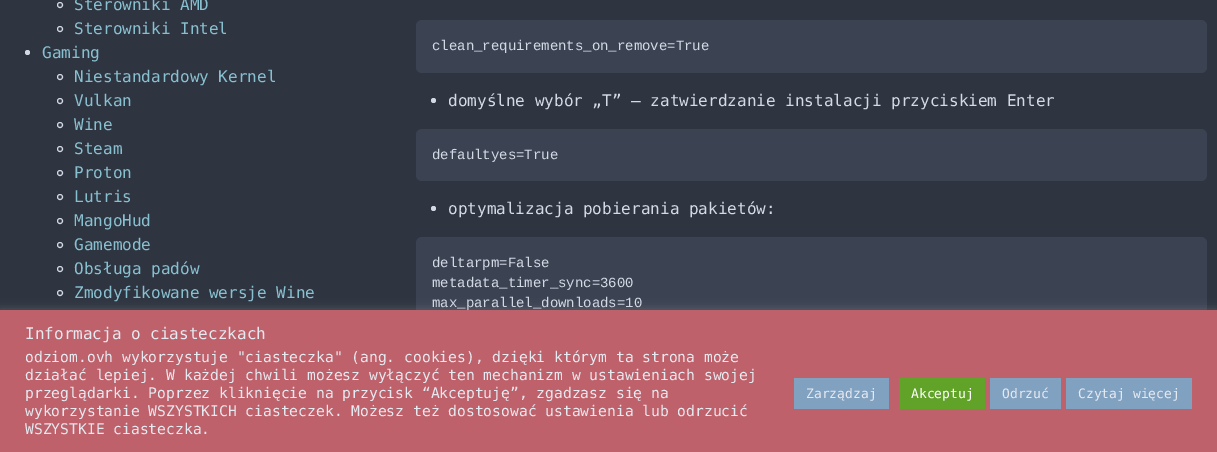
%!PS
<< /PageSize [1217 452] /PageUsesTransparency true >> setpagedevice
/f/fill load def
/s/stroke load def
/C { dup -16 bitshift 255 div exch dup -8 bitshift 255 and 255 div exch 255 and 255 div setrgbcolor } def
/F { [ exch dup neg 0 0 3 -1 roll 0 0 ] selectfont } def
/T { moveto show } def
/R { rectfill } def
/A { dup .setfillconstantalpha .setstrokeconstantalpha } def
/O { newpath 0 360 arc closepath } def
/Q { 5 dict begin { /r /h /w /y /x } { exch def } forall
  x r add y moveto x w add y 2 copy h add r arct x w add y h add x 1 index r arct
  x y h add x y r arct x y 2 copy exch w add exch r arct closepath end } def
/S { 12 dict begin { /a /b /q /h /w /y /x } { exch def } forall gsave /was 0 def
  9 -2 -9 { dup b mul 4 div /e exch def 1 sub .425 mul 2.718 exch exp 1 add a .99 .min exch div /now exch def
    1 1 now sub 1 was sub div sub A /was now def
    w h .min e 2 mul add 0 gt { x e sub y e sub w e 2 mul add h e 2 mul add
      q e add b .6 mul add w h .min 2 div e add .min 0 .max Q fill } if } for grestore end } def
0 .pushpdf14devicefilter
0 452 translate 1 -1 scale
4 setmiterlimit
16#2E3440 C
0 0 1217 452 R
16#D4DAE5 C
60 5 2.5 O s
/DejaVuSansMono-Regular 16 F
16#88C0D0 C
(Sterowniki AMD) 74 10 T
16#D4DAE5 C
60 29 2.5 O s
16#88C0D0 C
(Sterowniki Intel) 74 34 T
16#D4DAE5 C
27.5 52.5 2.5 O f
16#88C0D0 C
(Gaming) 42 58 T
16#D4DAE5 C
60 77 2.5 O s
16#88C0D0 C
(Niestandardowy Kernel) 74 82 T
16#D4DAE5 C
60 101 2.5 O s
16#88C0D0 C
(Vulkan) 74 106 T
16#D4DAE5 C
60 125 2.5 O s
16#88C0D0 C
(Wine) 74 130 T
16#D4DAE5 C
60 149 2.5 O s
16#88C0D0 C
(Steam) 74 154 T
16#D4DAE5 C
60 173 2.5 O s
16#88C0D0 C
(Proton) 74 178 T
16#D4DAE5 C
60 197 2.5 O s
16#88C0D0 C
(Lutris) 74 202 T
16#D4DAE5 C
60 221 2.5 O s
16#88C0D0 C
(MangoHud) 74 226 T
16#D4DAE5 C
60 245 2.5 O s
16#88C0D0 C
(Gamemode) 74 250 T
16#D4DAE5 C
60 269 2.5 O s
16#88C0D0 C
(Obsługa padów) 74 274 T
16#D4DAE5 C
60 293 2.5 O s
16#88C0D0 C
(Zmodyfikowane wersje Wine) 74 298 T
16#3B4252 C
416 20 791 53 6 Q f
/LiberationMono-Regular 14 F
16#D4DAE5 C
(clean_requirements_on_remove=True) 432 50 T
433.5 100.5 2.5 O f
/DejaVuSansMono-Regular 16 F
(domyślne wybór „T” – zatwierdzanie instalacji przyciskiem Enter) 448 106 T
16#3B4252 C
416 129 791 52 6 Q f
/LiberationMono-Regular 14 F
16#D4DAE5 C
(defaultyes=True) 432 159 T
433.5 208.5 2.5 O f
/DejaVuSansMono-Regular 16 F
(optymalizacja pobierania pakietów:) 448 214 T
16#3B4252 C
416 237 791 113 6 Q f
/LiberationMono-Regular 14 F
16#D4DAE5 C
(deltarpm=False) 432 267 T
(metadata_timer_sync=3600) 432 287 T
(max_parallel_downloads=10) 432 307 T
16#ACABAB C
0 309 1217 142 0 5 .3 S
16#BF616A C
0 310 1217 142 R
/DejaVuSansMono-Regular 16 F
16#E5E9F0 C
(Informacja o ciasteczkach) 25 339 T
/DejaVuSansMono-Regular 14.65 F
(odziom.ovh wykorzystuje "ciasteczka" \(ang. cookies\), dzięki którym ta strona może) 25 362 T
(działać lepiej. W każdej chwili możesz wyłączyć ten mechanizm w ustawieniach swojej) 25 380 T
(przeglądarki. Poprzez kliknięcie na przycisk “Akceptuję”, zgadzasz się na) 25 398 T
(wykorzystanie WSZYSTKICH ciasteczek. Możesz też dostosować ustawienia lub odrzucić) 25 416 T
(WSZYSTKIE ciasteczka.) 25 434 T
16#81A1C1 C
794 378 95 31 R
/DejaVuSansMono-Regular 13 F
16#E5E9F0 C
(Zarządzaj) 806 398 T
16#61A229 C
899 378 86 31 R
16#FFFFFF C
(Akceptuj) 911 398 T
16#81A1C1 C
990 378 71 31 R
16#E5E9F0 C
(Odrzuć) 1002 398 T
16#81A1C1 C
1066 378 126 31 R
16#E5E9F0 C
(Czytaj więcej) 1078 398 T
.poppdf14devicefilter showpage
